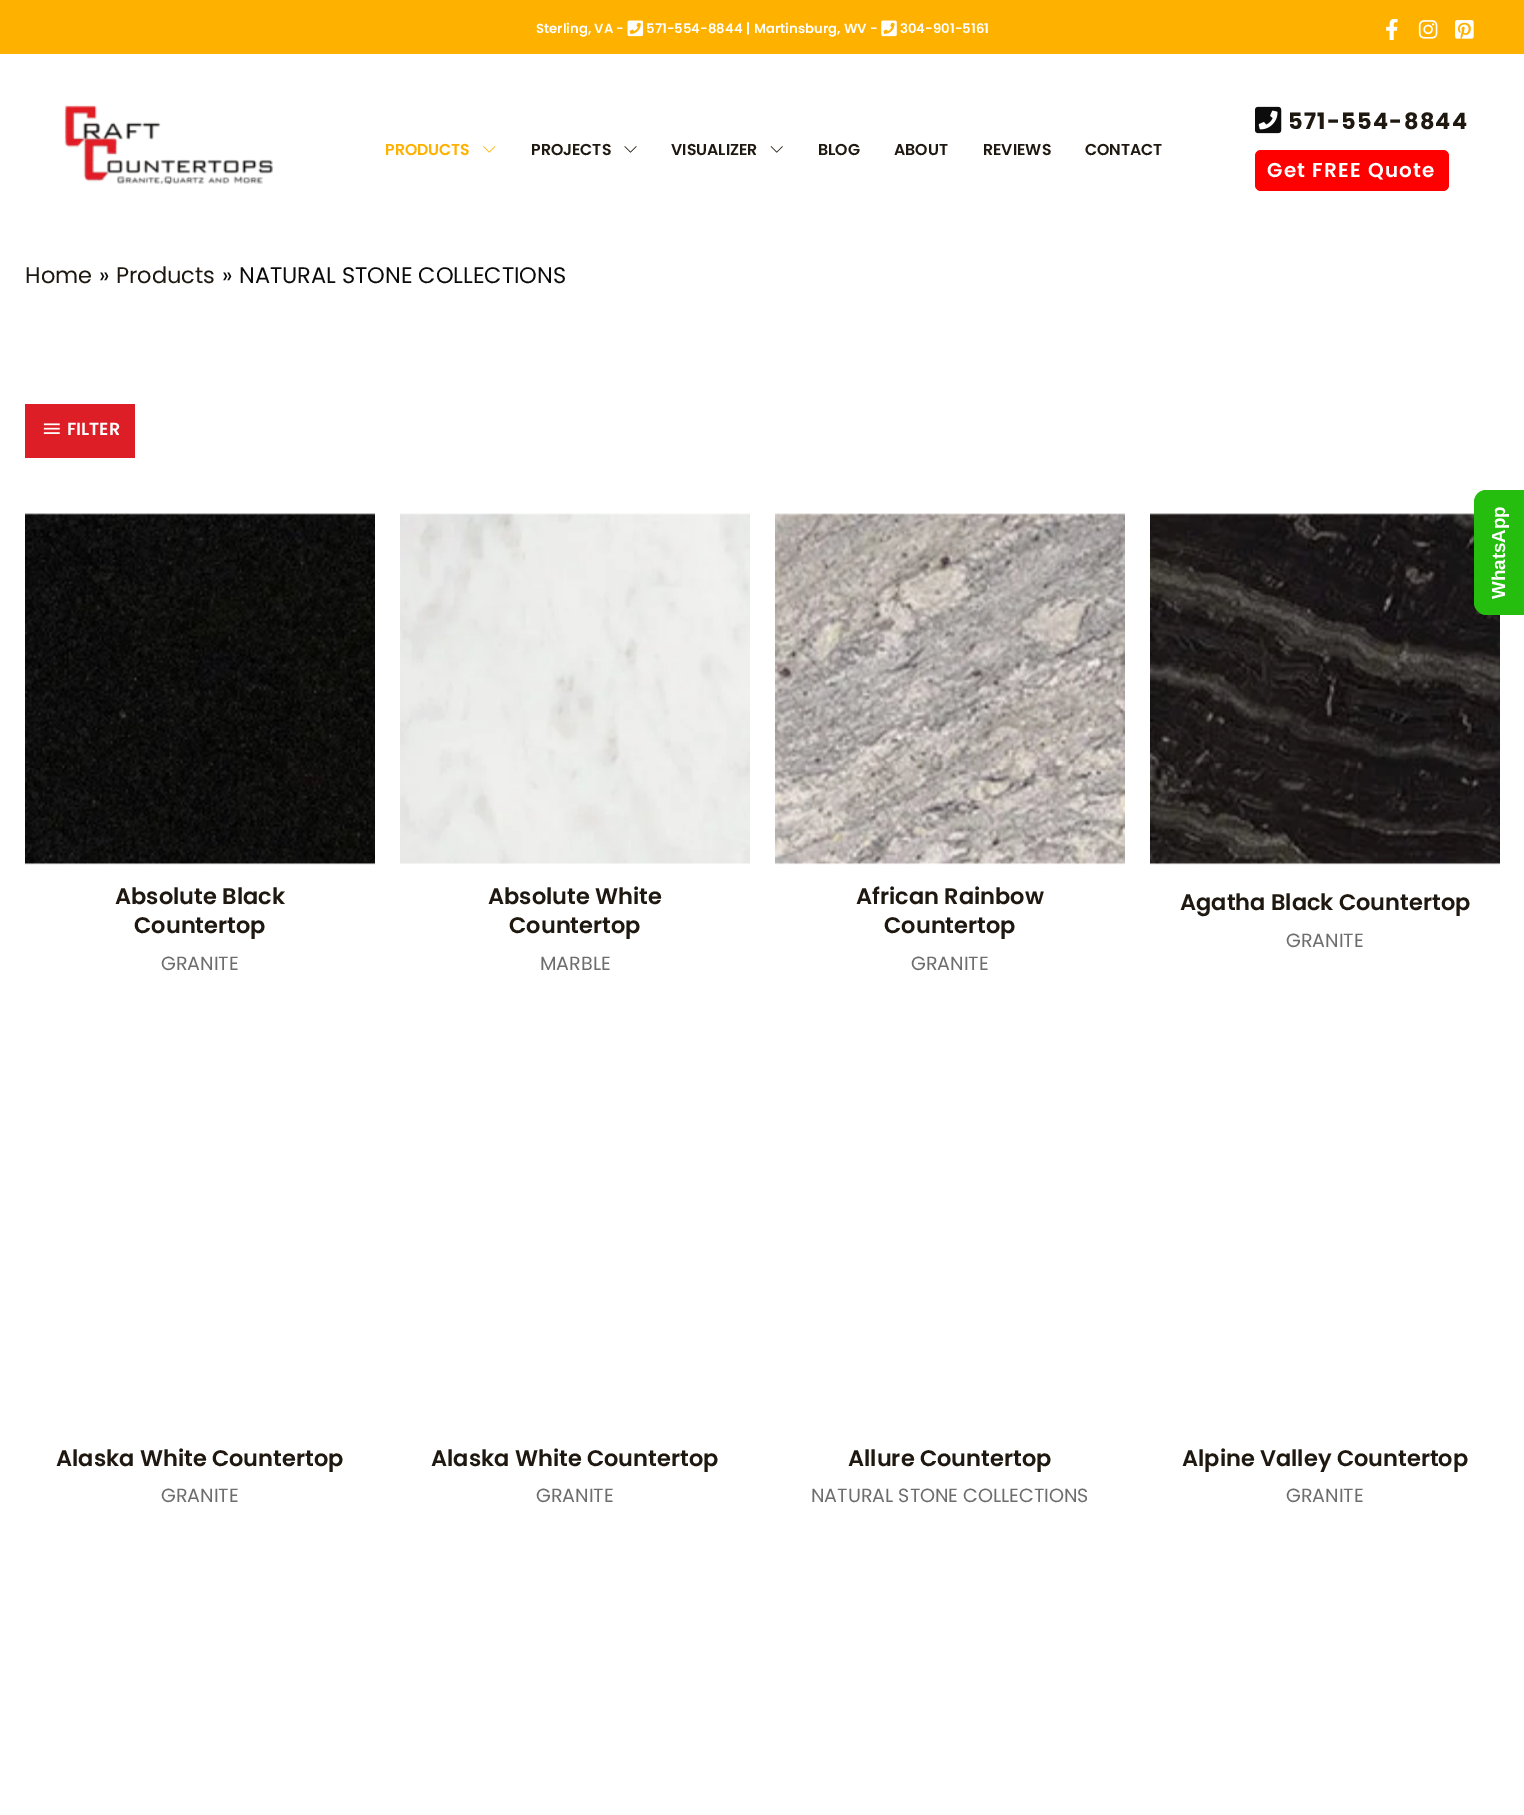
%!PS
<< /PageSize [1524 1815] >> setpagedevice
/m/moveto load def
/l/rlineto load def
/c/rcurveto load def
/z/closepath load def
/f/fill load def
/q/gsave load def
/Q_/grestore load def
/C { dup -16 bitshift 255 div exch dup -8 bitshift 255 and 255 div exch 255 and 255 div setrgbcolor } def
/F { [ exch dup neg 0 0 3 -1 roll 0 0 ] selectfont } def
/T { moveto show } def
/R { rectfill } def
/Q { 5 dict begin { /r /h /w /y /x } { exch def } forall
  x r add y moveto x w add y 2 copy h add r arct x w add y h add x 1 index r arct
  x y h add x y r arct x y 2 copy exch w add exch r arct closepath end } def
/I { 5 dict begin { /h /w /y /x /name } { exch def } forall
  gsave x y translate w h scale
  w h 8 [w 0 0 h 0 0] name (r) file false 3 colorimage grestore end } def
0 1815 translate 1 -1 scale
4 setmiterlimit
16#FFFFFF C
0 0 1524 1815 R
16#FFB100 C
0 0 1524 54 R
/Poppins-SemiBold 13.25 F
16#FFFFFF C
(Sterling, VA -) 536 33 T
(1.rgb) 627 20 17 17 I
(571-554-8844) 646 33 T
(|) 746 33 T
(Martinsburg, WV -) 754 33 T
(2.rgb) 881 20 16 17 I
(304-901-5161) 900 33 T
(3.rgb) 1386 19 12 21 I
(4.rgb) 1418 20 20 19 I
(5.rgb) 1455 20 19 19 I
(6.rgb) 64 105 209 80 I
/Poppins-SemiBold 15.75 F
16#FFB100 C
(PRODUCTS) 385 155 T
(7.rgb) 483 146 13 7 I
16#1E1810 C
(PROJECTS) 531 155 T
(8.rgb) 624 146 13 7 I
(VISUALIZER) 671 155 T
(9.rgb) 770 146 13 7 I
(BLOG) 818 155 T
(ABOUT) 894 155 T
(REVIEWS) 983 155 T
(CONTACT) 1085 155 T
(10.rgb) 1255 106 27 28 I
/Poppins-Bold 22.5 F
1288 129 m 1.25 0 (571-554-8844) ashow
16#FF0000 C
1255 150 194 41 6 Q f
/Poppins-SemiBold 20 F
16#FFFFFF C
1267 177 m 1.25 0 (Get FREE Quote) ashow
/Poppins-Regular 22.5 F
16#1E1810 C
(Home) 25 283 T
16#0C0C0C C
(») 99 283 T
16#1E1810 C
(Products) 116 283 T
16#0C0C0C C
(») 222 283 T
(NATURAL STONE COLLECTIONS) 239 283 T
16#DE1E26 C
25 404 110 54 R
(11.rgb) 43 423 17 11 I
/Poppins-SemiBold 17.5 F
16#FFFFFF C
(FILTER) 67 435 T
(12.rgb) 25 513 350 352 I
/Poppins-SemiBold 22.5 F
16#1E1810 C
(Absolute Black) 115 904 T
(Countertop) 134 933 T
/Poppins-Regular 19.1 F
16#6D6D6D C
(GRANITE) 161 970 T
(13.rgb) 400 513 350 351 I
/Poppins-SemiBold 22.5 F
16#1E1810 C
(Absolute White) 488 904 T
(Countertop) 509 933 T
/Poppins-Regular 19.1 F
16#6D6D6D C
(MARBLE) 540 970 T
(14.rgb) 775 513 350 352 I
/Poppins-SemiBold 22.5 F
16#1E1810 C
(African Rainbow) 856 904 T
(Countertop) 884 933 T
/Poppins-Regular 19.1 F
16#6D6D6D C
(GRANITE) 911 970 T
(15.rgb) 1150 513 350 352 I
/Poppins-SemiBold 22.5 F
16#1E1810 C
(Agatha Black Countertop) 1180 910 T
/Poppins-Regular 19.1 F
16#6D6D6D C
(GRANITE) 1286 947 T
/Poppins-SemiBold 22.5 F
16#1E1810 C
(Alaska White Countertop) 56 1466 T
/Poppins-Regular 19.1 F
16#6D6D6D C
(GRANITE) 161 1502 T
/Poppins-SemiBold 22.5 F
16#1E1810 C
(Alaska White Countertop) 431 1466 T
/Poppins-Regular 19.1 F
16#6D6D6D C
(GRANITE) 536 1502 T
/Poppins-SemiBold 22.5 F
16#1E1810 C
(Allure Countertop) 848 1466 T
/Poppins-Regular 19.1 F
16#6D6D6D C
(NATURAL STONE COLLECTIONS) 811 1502 T
/Poppins-SemiBold 22.5 F
16#1E1810 C
(Alpine Valley Countertop) 1182 1466 T
/Poppins-Regular 19.1 F
16#6D6D6D C
(GRANITE) 1286 1502 T
16#26BE0E C
1474 603 m 0 -101 l 0 -7 6 -12 12 -12 c 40 0 l 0 125 l -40 0 l -6 0 -12 -6 -12 -12 c z f
/LiberationSans-Bold 18.75 F
16#FFFFFF C
q 1505 599 translate -90 rotate 0 0 m (WhatsApp) show Q_
showpage
